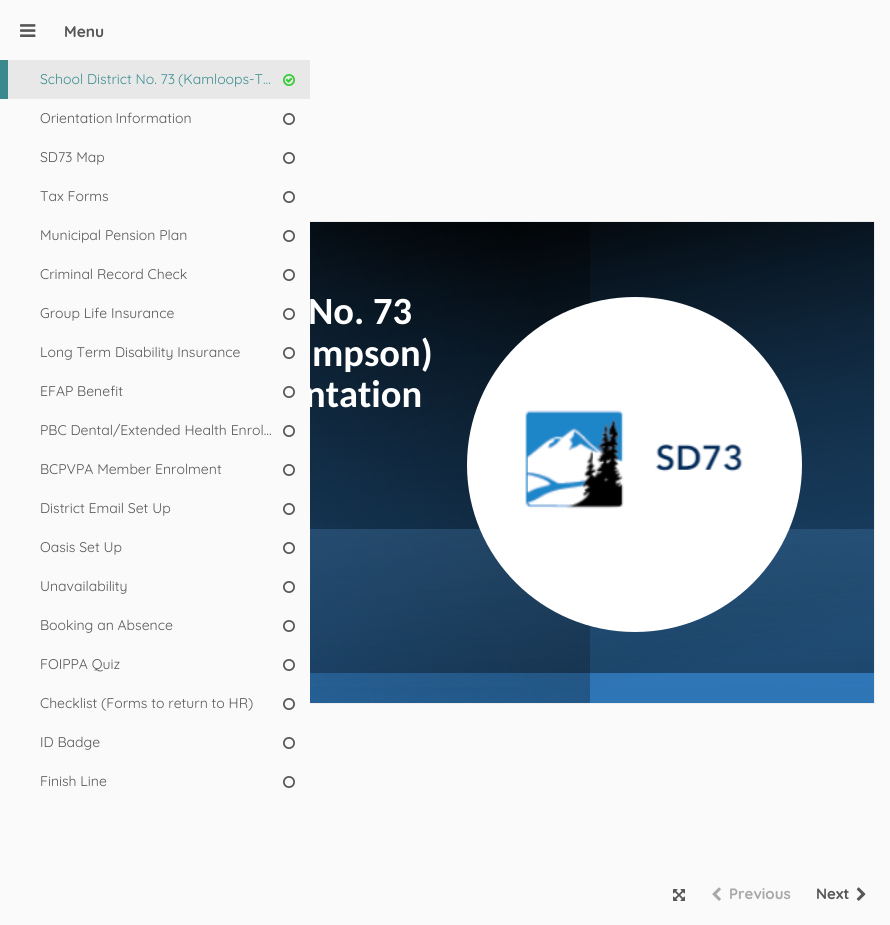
import math
import cairocffi as cairo

surface = cairo.ImageSurface(cairo.FORMAT_RGB24, 890, 925)
cr = cairo.Context(surface)
options = cairo.FontOptions()
options.set_hint_metrics(cairo.HINT_METRICS_OFF)
options.set_hint_style(cairo.HINT_STYLE_NONE)
cr.set_font_options(options)
cr.set_miter_limit(4)


def use_color(code):
    cr.set_source_rgb(*(v / 255 for v in bytes.fromhex(code[-6:])))


def spaced_text(x, y, s, letter, word):
    cr.move_to(x, y)
    for ch in s:
        cr.show_text(ch)
        cr.rel_move_to(letter + word * (ch == ' '), 0)


def picture(path, x, y, w, h):
    cr.save()
    cr.set_source_surface(cairo.ImageSurface.create_from_png(path), x, y)
    cr.rectangle(x, y, w, h)
    cr.fill()
    cr.restore()


use_color("#fafafa")
cr.paint()
cr.rectangle(15.5, 221.5, 859, 482)
use_color("#eeeeee")
cr.set_line_width(1)
cr.stroke()
gradient = cairo.LinearGradient(300, 237, 400, 730)
gradient.add_color_stop_rgba(0, 0, 0, 0, 1)
gradient.add_color_stop_rgba(1, 0.18, 0.459, 0.714, 1)
cr.set_source(gradient)
cr.rectangle(310, 222, 564, 481)
cr.fill()
gradient = cairo.LinearGradient(66, 546, 560, 347)
gradient.add_color_stop_rgba(0, 0.18, 0.459, 0.714, 0.45)
gradient.add_color_stop_rgba(1, 0, 0, 0, 0.29)
cr.set_source(gradient)
cr.rectangle(310, 222, 280, 481)
cr.fill()
gradient = cairo.LinearGradient(256, 253, 406, 725)
gradient.add_color_stop_rgba(0, 0, 0, 0, 0)
gradient.add_color_stop_rgba(1, 0, 0, 0, 0.41)
cr.set_source(gradient)
cr.rectangle(310, 222, 564, 451)
cr.fill()
cr.select_font_face("Carlito", cairo.FONT_SLANT_NORMAL, cairo.FONT_WEIGHT_BOLD)
cr.set_font_size(38.5)
use_color("#ffffff")
cr.move_to(305, 407)
cr.show_text("ntation")
use_color("#fafafa")
cr.rectangle(15, 221, 295, 483)
cr.fill()
picture("img1.png", 20, 24, 16, 13)
cr.select_font_face("Quicksand", cairo.FONT_SLANT_NORMAL, cairo.FONT_WEIGHT_BOLD)
cr.set_font_size(15.5)
use_color("#565656")
cr.move_to(64, 37)
cr.show_text("Menu")
use_color("#e8e8e8")
cr.rectangle(8, 60, 302, 39)
cr.fill()
use_color("#39898d")
cr.rectangle(0, 60, 8, 39)
cr.fill()
cr.select_font_face("Quicksand")
cr.set_font_size(14)
use_color("#3b8e92")
cr.move_to(40, 84)
cr.show_text("School District No. 73")
spaced_text(178, 84, "(Kamloops-T…", 0, -1)
picture("img2.png", 283, 74, 12, 12)
use_color("#565656")
spaced_text(40, 123, "Orientation Information", 0, -1)
picture("img3.png", 283, 113, 12, 12)
cr.move_to(40, 162)
cr.show_text("SD73 Map")
picture("img3.png", 283, 152, 12, 12)
cr.move_to(40, 201)
cr.show_text("Tax Forms")
picture("img3.png", 283, 191, 12, 12)
cr.move_to(40, 240)
cr.show_text("Municipal Pension Plan")
picture("img3.png", 283, 230, 12, 12)
cr.move_to(40, 279)
cr.show_text("Criminal Record Check")
picture("img3.png", 283, 269, 12, 12)
cr.move_to(40, 318)
cr.show_text("Group Life Insurance")
picture("img3.png", 283, 308, 12, 12)
cr.move_to(40, 357)
cr.show_text("Long Term Disability Insurance")
picture("img3.png", 283, 347, 12, 12)
cr.move_to(40, 396)
cr.show_text("EFAP Benefit")
picture("img3.png", 283, 386, 12, 12)
cr.move_to(40, 435)
cr.show_text("PBC Dental/Extended Health Enrol…")
picture("img3.png", 283, 425, 12, 12)
cr.move_to(40, 474)
cr.show_text("BCPVPA Member Enrolment")
picture("img3.png", 283, 464, 12, 12)
cr.move_to(40, 513)
cr.show_text("District Email Set Up")
picture("img3.png", 283, 503, 12, 12)
cr.move_to(40, 552)
cr.show_text("Oasis Set Up")
picture("img3.png", 283, 542, 12, 12)
cr.move_to(40, 591)
cr.show_text("Unavailability")
picture("img3.png", 283, 581, 12, 12)
cr.move_to(40, 630)
cr.show_text("Booking an Absence")
picture("img3.png", 283, 620, 12, 12)
cr.move_to(40, 669)
cr.show_text("FOIPPA Quiz")
picture("img3.png", 283, 659, 12, 12)
cr.move_to(40, 708)
cr.show_text("Checklist (Forms to return to HR)")
picture("img3.png", 283, 698, 12, 12)
cr.move_to(40, 747)
cr.show_text("ID Badge")
picture("img3.png", 283, 737, 12, 12)
cr.move_to(40, 786)
cr.show_text("Finish Line")
picture("img3.png", 283, 776, 12, 12)
cr.select_font_face("Carlito", cairo.FONT_SLANT_NORMAL, cairo.FONT_WEIGHT_BOLD)
cr.set_font_size(38.5)
use_color("#ffffff")
cr.move_to(308, 324)
cr.show_text("No. 73")
cr.move_to(312, 366)
cr.show_text("mpson)")
gradient = cairo.LinearGradient(369, 531, 375, 710)
gradient.add_color_stop_rgba(0, 0.357, 0.608, 0.835, 0.24)
gradient.add_color_stop_rgba(1, 0.357, 0.608, 0.835, 0)
cr.set_source(gradient)
cr.rectangle(310, 529, 564, 158)
cr.fill()
use_color("#ffffff")
cr.new_path()
cr.move_to(467, 465)
cr.curve_to(467, 372, 542, 297, 635, 297)
cr.curve_to(727, 297, 802, 372, 802, 465)
cr.curve_to(802, 557, 727, 632, 635, 632)
cr.curve_to(542, 632, 467, 557, 467, 465)
cr.close_path()
cr.fill()
picture("img4.png", 525, 410, 218, 99)
picture("img5.png", 673, 889, 12, 12)
picture("img6.png", 712, 887, 9, 14)
cr.select_font_face("Quicksand", cairo.FONT_SLANT_NORMAL, cairo.FONT_WEIGHT_BOLD)
cr.set_font_size(15)
use_color("#a8a8a8")
cr.move_to(729, 899)
cr.show_text("Previous")
use_color("#565656")
cr.move_to(816, 899)
cr.show_text("Next")
picture("img7.png", 856, 887, 10, 14)
surface.write_to_png("result.png")
